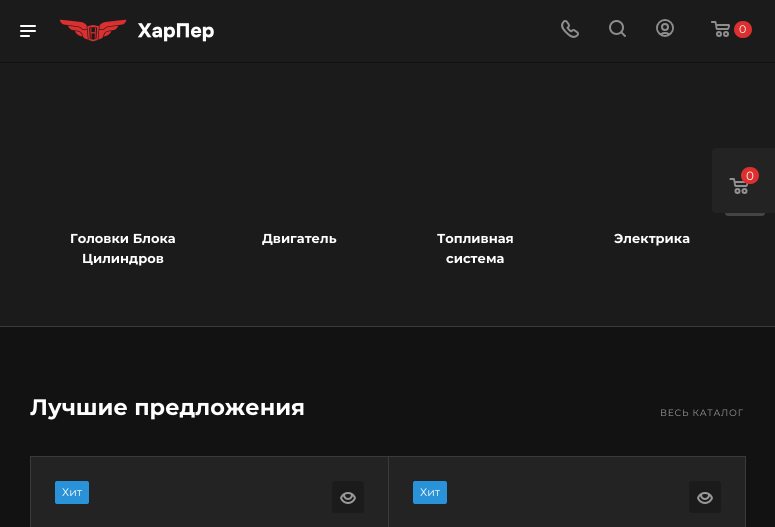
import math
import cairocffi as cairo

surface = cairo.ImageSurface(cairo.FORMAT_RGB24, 775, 527)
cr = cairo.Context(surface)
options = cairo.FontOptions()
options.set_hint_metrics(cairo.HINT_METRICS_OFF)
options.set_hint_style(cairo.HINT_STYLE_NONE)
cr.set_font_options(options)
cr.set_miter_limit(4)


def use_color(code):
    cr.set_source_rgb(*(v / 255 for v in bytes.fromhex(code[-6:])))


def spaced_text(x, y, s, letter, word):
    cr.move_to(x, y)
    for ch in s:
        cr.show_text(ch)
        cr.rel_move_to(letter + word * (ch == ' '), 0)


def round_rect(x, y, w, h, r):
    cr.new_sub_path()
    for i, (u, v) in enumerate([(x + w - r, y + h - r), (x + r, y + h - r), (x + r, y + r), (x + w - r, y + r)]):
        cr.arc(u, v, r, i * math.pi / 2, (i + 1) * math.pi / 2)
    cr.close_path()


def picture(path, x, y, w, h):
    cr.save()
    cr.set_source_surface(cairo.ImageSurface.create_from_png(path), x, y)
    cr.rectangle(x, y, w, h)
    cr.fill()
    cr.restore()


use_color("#1b1b1b")
cr.paint()
use_color("#121212")
cr.rectangle(0, 62, 775, 1)
cr.fill()
picture("img1.png", 20, 25, 16, 12)
picture("img2.png", 59, 19, 155, 23)
picture("img3.png", 561, 20, 18, 18)
picture("img4.png", 609, 20, 17, 17)
picture("img5.png", 656, 19, 18, 18)
picture("img6.png", 711, 21, 19, 16)
use_color("#dc2f2f")
round_rect(734, 21, 18, 17, 8.5)
cr.fill()
cr.select_font_face("Montserrat")
cr.set_font_size(11)
use_color("#ffffff")
cr.move_to(739, 33)
cr.show_text("0")
use_color("#3a3a3a")
cr.rectangle(0, 326, 775, 1)
cr.fill()
use_color("#444444")
round_rect(725, 176, 40, 40, 3)
cr.fill()
cr.select_font_face("Montserrat", cairo.FONT_SLANT_NORMAL, cairo.FONT_WEIGHT_BOLD)
cr.set_font_size(13)
use_color("#ffffff")
cr.move_to(70, 243)
cr.show_text("Головки Блока")
cr.move_to(82, 263)
cr.show_text("Цилиндров")
cr.move_to(262, 243)
cr.show_text("Двигатель")
cr.move_to(437, 243)
cr.show_text("Топливная")
cr.move_to(446, 263)
cr.show_text("система")
cr.move_to(614, 243)
cr.show_text("Электрика")
use_color("#121212")
cr.rectangle(0, 327, 775, 200)
cr.fill()
cr.set_font_size(22.4)
use_color("#ffffff")
cr.move_to(30, 415)
cr.show_text("Лучшие предложения")
cr.select_font_face("Montserrat")
cr.set_font_size(9.25)
use_color("#999999")
spaced_text(660, 416, "ВЕСЬ КАТАЛОГ", 0.75, 0)
use_color("#232323")
cr.rectangle(30.5, 456.5, 358, 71)
cr.fill_preserve()
use_color("#3a3a3a")
cr.set_line_width(1)
cr.stroke()
use_color("#2992d9")
round_rect(55, 481, 34, 23, 2)
cr.fill()
cr.set_font_size(11)
use_color("#ffffff")
cr.move_to(62, 496)
cr.show_text("Хит")
use_color("#1b1b1b")
round_rect(332, 481, 32, 32, 3)
cr.fill()
picture("img7.png", 340, 492, 16, 12)
use_color("#232323")
cr.rectangle(388.5, 456.5, 357, 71)
cr.fill_preserve()
use_color("#3a3a3a")
cr.stroke()
use_color("#2992d9")
round_rect(413, 481, 34, 23, 2)
cr.fill()
use_color("#ffffff")
cr.move_to(420, 496)
cr.show_text("Хит")
use_color("#1b1b1b")
round_rect(689, 481, 32, 32, 3)
cr.fill()
picture("img7.png", 697, 492, 16, 12)
use_color("#232323")
cr.new_path()
cr.move_to(716, 148)
cr.line_to(775, 148)
cr.line_to(775, 213)
cr.line_to(716, 213)
cr.curve_to(714, 213, 712, 211, 712, 209)
cr.line_to(712, 152)
cr.curve_to(712, 150, 714, 148, 716, 148)
cr.close_path()
cr.fill()
picture("img8.png", 729, 178, 20, 16)
use_color("#dc2f2f")
round_rect(741, 167, 18, 17, 8.5)
cr.fill()
cr.set_font_size(12)
use_color("#ffffff")
cr.move_to(746, 180)
cr.show_text("0")
surface.write_to_png("result.png")
